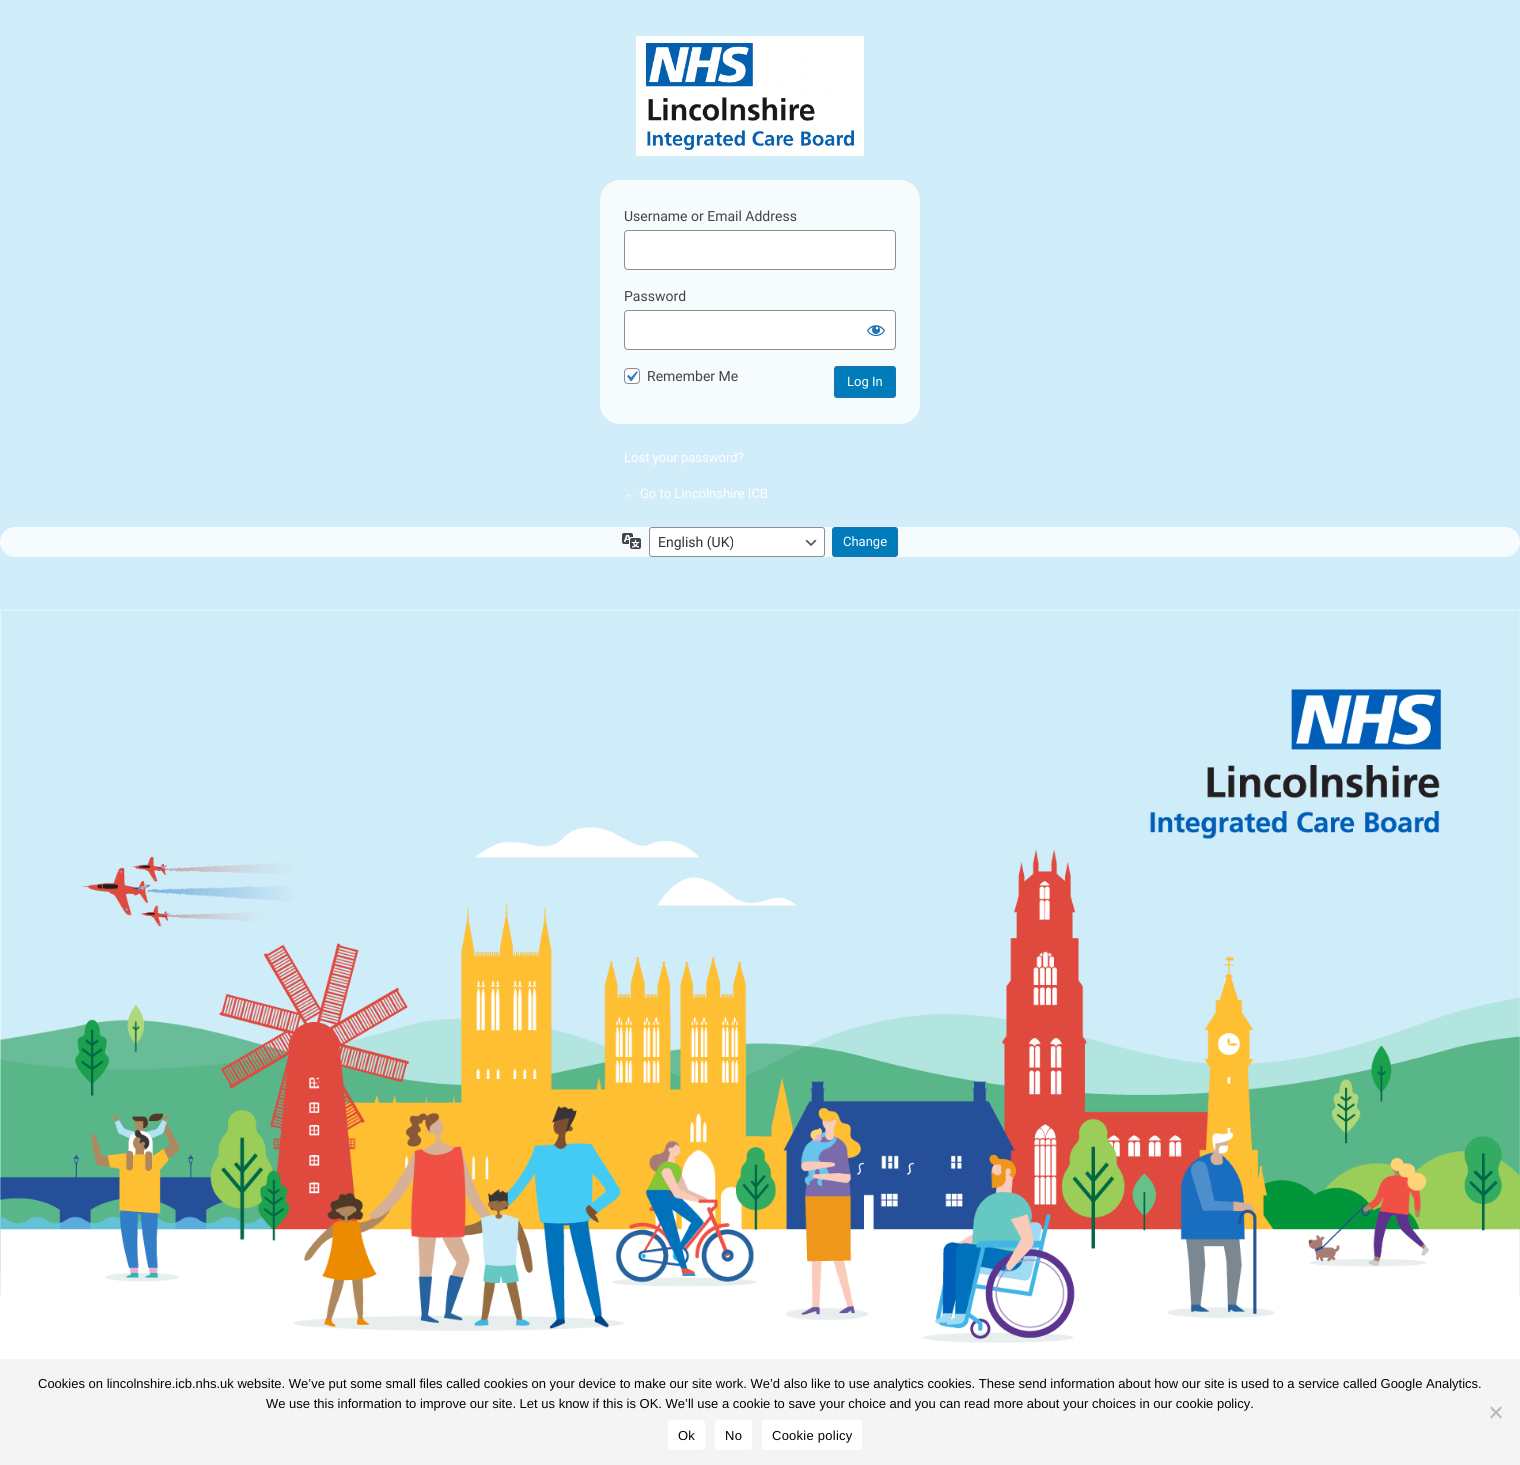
import math
import cairocffi as cairo

surface = cairo.ImageSurface(cairo.FORMAT_RGB24, 1520, 1465)
cr = cairo.Context(surface)
options = cairo.FontOptions()
options.set_hint_metrics(cairo.HINT_METRICS_OFF)
options.set_hint_style(cairo.HINT_STYLE_NONE)
cr.set_font_options(options)
cr.set_miter_limit(4)


def use_color(code):
    cr.set_source_rgb(*(v / 255 for v in bytes.fromhex(code[-6:])))


def spaced_text(x, y, s, letter, word):
    cr.move_to(x, y)
    for ch in s:
        cr.show_text(ch)
        cr.rel_move_to(letter + word * (ch == ' '), 0)


def round_rect(x, y, w, h, r):
    cr.new_sub_path()
    for i, (u, v) in enumerate([(x + w - r, y + h - r), (x + r, y + h - r), (x + r, y + r), (x + w - r, y + r)]):
        cr.arc(u, v, r, i * math.pi / 2, (i + 1) * math.pi / 2)
    cr.close_path()


def picture(path, x, y, w, h):
    cr.save()
    cr.set_source_surface(cairo.ImageSurface.create_from_png(path), x, y)
    cr.rectangle(x, y, w, h)
    cr.fill()
    cr.restore()


use_color("#d0edf9")
cr.paint()
picture("img1.png", 0, 610, 1520, 749)
picture("img2.png", 636, 36, 228, 120)
cr.set_source_rgba(1, 1, 1, 0.8)
round_rect(600, 180, 320, 244, 20)
cr.fill()
cr.select_font_face("Roboto")
cr.set_font_size(14)
use_color("#444444")
cr.move_to(624, 221)
cr.show_text("Username or Email Address")
use_color("#ffffff")
round_rect(624.5, 230.5, 271, 39, 3.5)
cr.fill_preserve()
use_color("#8c8f94")
cr.set_line_width(1)
cr.stroke()
use_color("#444444")
cr.move_to(624, 301)
cr.show_text("Password")
use_color("#ffffff")
round_rect(624.5, 310.5, 271, 39, 3.5)
cr.fill_preserve()
use_color("#8c8f94")
cr.stroke()
picture("img3.png", 867, 325, 18, 12)
use_color("#ffffff")
round_rect(624.5, 368.5, 15, 15, 3.5)
cr.fill_preserve()
use_color("#8c8f94")
cr.stroke()
picture("img4.png", 627, 371, 11, 10)
use_color("#444444")
cr.move_to(647, 381)
cr.show_text("Remember Me")
use_color("#007cba")
round_rect(834.5, 366.5, 61, 31, 2.5)
cr.fill_preserve()
use_color("#2271b1")
cr.stroke()
cr.set_font_size(13)
use_color("#ffffff")
cr.move_to(847, 386)
cr.show_text("Log In")
cr.move_to(624, 462)
cr.show_text("Lost your password?")
cr.select_font_face("Liberation Sans")
cr.move_to(624, 498)
cr.show_text("←")
cr.select_font_face("Roboto")
cr.move_to(640, 498)
cr.show_text("Go to Lincolnshire ICB")
use_color("#f6fbfe")
round_rect(0, 527, 1520, 30, 15)
cr.fill()
picture("img5.png", 622, 533, 19, 16)
use_color("#ffffff")
round_rect(649, 527, 176, 30, 3)
cr.fill()
picture("img6.png", 805, 539, 12, 7)
round_rect(649.5, 527.5, 175, 29, 2.5)
use_color("#8c8f94")
cr.stroke()
cr.set_font_size(14)
use_color("#2c3338")
cr.move_to(658, 547)
cr.show_text("English (UK)")
use_color("#007cba")
round_rect(832.5, 527.5, 65, 29, 2.5)
cr.fill_preserve()
use_color("#2271b1")
cr.stroke()
cr.set_font_size(13)
use_color("#ffffff")
cr.move_to(843, 546)
cr.show_text("Change")
use_color("#f4f4f4")
cr.rectangle(0, 1359, 1520, 106)
cr.fill()
cr.select_font_face("Liberation Sans")
use_color("#020202")
cr.move_to(38, 1388)
cr.show_text("Cookies on lincolnshire.icb.nhs.uk website. We’ve put some small files called cookies on your device to make our site work. We’d also like to use analytics cookies. These send information about how our site is used to a service called Google Analytics.")
cr.move_to(266, 1408)
cr.show_text("We use this information to improve our site. Let us know if this is OK. We’ll use a cookie to save your choice and you can read more about your choices in our cookie policy.")
use_color("#bababa")
cr.new_path()
cr.move_to(1500.5, 1406.5)
cr.line_to(1502, 1408)
cr.line_to(1491.5, 1418.5)
cr.line_to(1490, 1417)
cr.close_path()
cr.fill()
cr.new_path()
cr.move_to(1490, 1408)
cr.line_to(1491.5, 1406.5)
cr.line_to(1502, 1417)
cr.line_to(1500.5, 1418.5)
cr.close_path()
cr.fill()
use_color("#ffffff")
round_rect(668, 1420, 37, 30, 3)
cr.fill()
use_color("#020202")
spaced_text(678, 1440, "Ok", 0.25, 0)
use_color("#ffffff")
round_rect(715, 1420, 37, 30, 3)
cr.fill()
use_color("#020202")
spaced_text(725, 1440, "No", 0.25, 0)
use_color("#ffffff")
round_rect(762, 1420, 100, 30, 3)
cr.fill()
use_color("#020202")
spaced_text(772, 1440, "Cookie policy", 0.25, 0)
surface.write_to_png("result.png")
